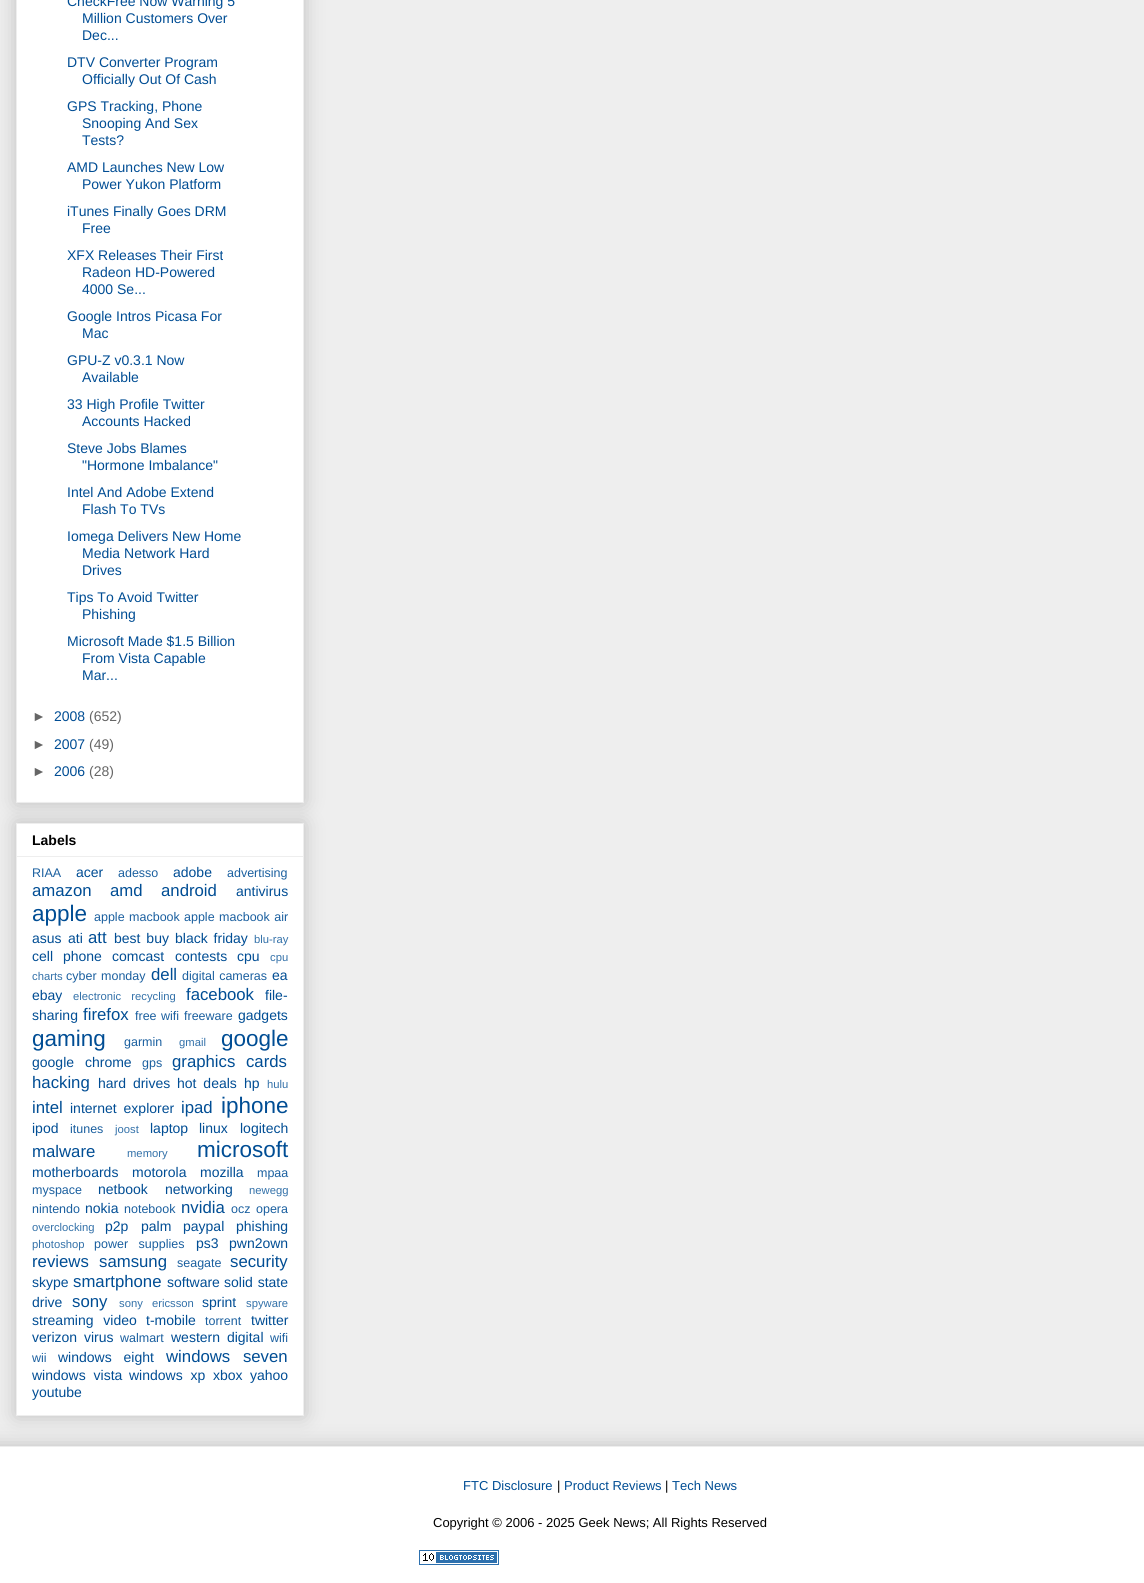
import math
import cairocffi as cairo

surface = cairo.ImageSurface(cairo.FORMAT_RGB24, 1144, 1583)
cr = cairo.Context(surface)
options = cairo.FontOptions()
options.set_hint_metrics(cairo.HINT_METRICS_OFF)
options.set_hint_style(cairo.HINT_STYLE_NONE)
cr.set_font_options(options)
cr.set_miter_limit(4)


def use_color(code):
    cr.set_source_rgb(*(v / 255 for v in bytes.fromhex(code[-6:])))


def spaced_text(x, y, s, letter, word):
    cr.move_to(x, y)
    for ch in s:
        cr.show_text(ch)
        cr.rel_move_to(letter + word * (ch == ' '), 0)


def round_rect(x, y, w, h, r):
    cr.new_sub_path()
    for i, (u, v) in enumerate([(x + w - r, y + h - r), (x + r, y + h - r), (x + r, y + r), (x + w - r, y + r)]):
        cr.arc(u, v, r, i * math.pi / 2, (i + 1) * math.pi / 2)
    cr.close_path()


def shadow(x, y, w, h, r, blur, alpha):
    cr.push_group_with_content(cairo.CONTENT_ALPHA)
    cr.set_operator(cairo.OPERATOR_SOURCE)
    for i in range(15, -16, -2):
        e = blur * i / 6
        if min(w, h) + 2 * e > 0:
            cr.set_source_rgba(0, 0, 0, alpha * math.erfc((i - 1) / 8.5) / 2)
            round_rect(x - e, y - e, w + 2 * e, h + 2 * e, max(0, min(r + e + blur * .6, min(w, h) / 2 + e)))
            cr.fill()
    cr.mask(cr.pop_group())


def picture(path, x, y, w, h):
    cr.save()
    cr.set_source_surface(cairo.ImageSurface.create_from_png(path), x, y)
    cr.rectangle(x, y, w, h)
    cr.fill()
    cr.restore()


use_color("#eeeeee")
cr.paint()
use_color("#000000")
shadow(16, -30, 288, 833, 0, 10, 0.2)
use_color("#ffffff")
cr.rectangle(16.5, -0.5, 287, 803)
cr.fill_preserve()
use_color("#eeeeee")
cr.set_line_width(1)
cr.stroke()
cr.select_font_face("Liberation Sans")
cr.set_font_size(14)
use_color("#004d94")
cr.move_to(67, 6)
cr.show_text("CheckFree Now Warning 5")
cr.move_to(82, 23)
cr.show_text("Million Customers Over")
cr.move_to(82, 40)
cr.show_text("Dec...")
cr.move_to(67, 67)
cr.show_text("DTV Converter Program")
cr.move_to(82, 84)
cr.show_text("Officially Out Of Cash")
cr.move_to(67, 111)
cr.show_text("GPS Tracking, Phone")
cr.move_to(82, 128)
cr.show_text("Snooping And Sex")
cr.move_to(82, 145)
cr.show_text("Tests?")
cr.move_to(67, 172)
cr.show_text("AMD Launches New Low")
cr.move_to(82, 189)
cr.show_text("Power Yukon Platform")
cr.move_to(67, 216)
cr.show_text("iTunes Finally Goes DRM")
cr.move_to(82, 233)
cr.show_text("Free")
cr.move_to(67, 260)
cr.show_text("XFX Releases Their First")
cr.move_to(82, 277)
cr.show_text("Radeon HD-Powered")
cr.move_to(82, 294)
cr.show_text("4000 Se...")
cr.move_to(67, 321)
cr.show_text("Google Intros Picasa For")
cr.move_to(82, 338)
cr.show_text("Mac")
cr.move_to(67, 365)
cr.show_text("GPU-Z v0.3.1 Now")
cr.move_to(82, 382)
cr.show_text("Available")
cr.move_to(67, 409)
cr.show_text("33 High Profile Twitter")
cr.move_to(82, 426)
cr.show_text("Accounts Hacked")
cr.move_to(67, 453)
cr.show_text("Steve Jobs Blames")
cr.move_to(82, 470)
cr.show_text("\"Hormone Imbalance\"")
cr.move_to(67, 497)
cr.show_text("Intel And Adobe Extend")
cr.move_to(82, 514)
cr.show_text("Flash To TVs")
cr.move_to(67, 541)
cr.show_text("Iomega Delivers New Home")
cr.move_to(82, 558)
cr.show_text("Media Network Hard")
cr.move_to(82, 575)
cr.show_text("Drives")
cr.move_to(67, 602)
cr.show_text("Tips To Avoid Twitter")
cr.move_to(82, 619)
cr.show_text("Phishing")
cr.move_to(67, 646)
cr.show_text("Microsoft Made $1.5 Billion")
cr.move_to(82, 663)
cr.show_text("From Vista Capable")
cr.move_to(82, 680)
cr.show_text("Mar...")
use_color("#666666")
cr.move_to(32, 721)
cr.show_text("►")
use_color("#004d94")
cr.move_to(54, 721)
cr.show_text("2008")
use_color("#666666")
cr.move_to(89, 721)
cr.show_text("(652)")
cr.move_to(32, 749)
cr.show_text("►")
use_color("#004d94")
cr.move_to(54, 749)
cr.show_text("2007")
use_color("#666666")
cr.move_to(89, 749)
cr.show_text("(49)")
cr.move_to(32, 776)
cr.show_text("►")
use_color("#004d94")
cr.move_to(54, 776)
cr.show_text("2006")
use_color("#666666")
cr.move_to(89, 776)
cr.show_text("(28)")
use_color("#000000")
shadow(16, 823, 288, 593, 0, 10, 0.2)
use_color("#ffffff")
cr.rectangle(16.5, 823.5, 287, 592)
cr.fill_preserve()
use_color("#eeeeee")
cr.stroke()
cr.select_font_face("Liberation Sans", cairo.FONT_SLANT_NORMAL, cairo.FONT_WEIGHT_BOLD)
use_color("#000000")
cr.move_to(32, 845)
cr.show_text("Labels")
use_color("#eeeeee")
cr.rectangle(17, 856, 286, 1)
cr.fill()
cr.select_font_face("Liberation Sans")
cr.set_font_size(12.5)
use_color("#1a5f9f")
cr.move_to(32, 877)
cr.show_text("RIAA")
cr.set_font_size(14)
use_color("#004d94")
cr.move_to(76, 877)
cr.show_text("acer")
cr.set_font_size(12.5)
use_color("#1a5f9f")
cr.move_to(118, 877)
cr.show_text("adesso")
cr.set_font_size(14)
use_color("#004d94")
cr.move_to(173, 877)
cr.show_text("adobe")
cr.set_font_size(12.5)
use_color("#1a5f9f")
cr.move_to(227, 877)
cr.show_text("advertising")
cr.set_font_size(16.75)
use_color("#004d94")
cr.move_to(32, 896)
cr.show_text("amazon")
cr.move_to(110, 896)
cr.show_text("amd")
cr.move_to(161, 896)
cr.show_text("android")
cr.set_font_size(14)
cr.move_to(236, 896)
cr.show_text("antivirus")
cr.set_font_size(22.5)
cr.move_to(32, 921)
cr.show_text("apple")
cr.set_font_size(12.5)
use_color("#1a5f9f")
spaced_text(94, 921, "apple macbook", 0, 1)
spaced_text(184, 921, "apple macbook air", 0, 1)
cr.set_font_size(14)
use_color("#004d94")
cr.move_to(32, 943)
cr.show_text("asus")
cr.move_to(68, 943)
cr.show_text("ati")
cr.set_font_size(16.75)
cr.move_to(88, 943)
cr.show_text("att")
cr.set_font_size(14)
spaced_text(114, 943, "best buy", 0, 2)
spaced_text(175, 943, "black friday", 0, 2)
cr.set_font_size(11.25)
use_color("#3371a9")
cr.move_to(254, 943)
cr.show_text("blu-ray")
cr.set_font_size(14)
use_color("#004d94")
spaced_text(32, 961, "cell phone", 0, 6)
cr.move_to(112, 961)
cr.show_text("comcast")
cr.move_to(175, 961)
cr.show_text("contests")
cr.move_to(237, 961)
cr.show_text("cpu")
cr.set_font_size(11.25)
use_color("#3371a9")
cr.move_to(270, 961)
cr.show_text("cpu")
cr.move_to(32, 980)
cr.show_text("charts")
cr.set_font_size(12.5)
use_color("#1a5f9f")
spaced_text(66, 980, "cyber monday", 0, 1)
cr.set_font_size(16.75)
use_color("#004d94")
cr.move_to(151, 980)
cr.show_text("dell")
cr.set_font_size(12.5)
use_color("#1a5f9f")
spaced_text(182, 980, "digital cameras", 0, 1)
cr.set_font_size(14)
use_color("#004d94")
cr.move_to(272, 980)
cr.show_text("ea")
cr.move_to(32, 1000)
cr.show_text("ebay")
cr.set_font_size(11.25)
use_color("#3371a9")
spaced_text(73, 1000, "electronic recycling", 0, 7)
cr.set_font_size(16.75)
use_color("#004d94")
cr.move_to(186, 1000)
cr.show_text("facebook")
cr.set_font_size(14)
cr.move_to(265, 1000)
cr.show_text("file-")
cr.move_to(32, 1020)
cr.show_text("sharing")
cr.set_font_size(16.75)
cr.move_to(83, 1020)
cr.show_text("firefox")
cr.set_font_size(12.5)
use_color("#1a5f9f")
spaced_text(135, 1020, "free wifi", 0, 1)
cr.move_to(184, 1020)
cr.show_text("freeware")
cr.set_font_size(14)
use_color("#004d94")
cr.move_to(238, 1020)
cr.show_text("gadgets")
cr.set_font_size(22.5)
cr.move_to(32, 1046)
cr.show_text("gaming")
cr.set_font_size(12.5)
use_color("#1a5f9f")
cr.move_to(124, 1046)
cr.show_text("garmin")
cr.set_font_size(11.25)
use_color("#3371a9")
cr.move_to(179, 1046)
cr.show_text("gmail")
cr.set_font_size(22.5)
use_color("#004d94")
cr.move_to(221, 1046)
cr.show_text("google")
cr.set_font_size(14)
spaced_text(32, 1067, "google chrome", 0, 7)
cr.set_font_size(12.5)
use_color("#1a5f9f")
cr.move_to(142, 1067)
cr.show_text("gps")
cr.set_font_size(16.75)
use_color("#004d94")
spaced_text(172, 1067, "graphics cards", 0, 6)
cr.move_to(32, 1088)
cr.show_text("hacking")
cr.set_font_size(14)
spaced_text(98, 1088, "hard drives", 0, 3)
spaced_text(177, 1088, "hot deals", 0, 3)
cr.move_to(244, 1088)
cr.show_text("hp")
cr.set_font_size(11.25)
use_color("#3371a9")
cr.move_to(267, 1088)
cr.show_text("hulu")
cr.set_font_size(16.75)
use_color("#004d94")
cr.move_to(32, 1113)
cr.show_text("intel")
cr.set_font_size(14)
spaced_text(70, 1113, "internet explorer", 0, 3)
cr.set_font_size(16.75)
cr.move_to(181, 1113)
cr.show_text("ipad")
cr.set_font_size(22.5)
cr.move_to(221, 1113)
cr.show_text("iphone")
cr.set_font_size(14)
cr.move_to(32, 1133)
cr.show_text("ipod")
cr.set_font_size(12.5)
use_color("#1a5f9f")
cr.move_to(70, 1133)
cr.show_text("itunes")
cr.set_font_size(11.25)
use_color("#3371a9")
cr.move_to(115, 1133)
cr.show_text("joost")
cr.set_font_size(14)
use_color("#004d94")
cr.move_to(150, 1133)
cr.show_text("laptop")
cr.move_to(199, 1133)
cr.show_text("linux")
cr.move_to(240, 1133)
cr.show_text("logitech")
cr.set_font_size(16.75)
cr.move_to(32, 1157)
cr.show_text("malware")
cr.set_font_size(11.25)
use_color("#3371a9")
cr.move_to(127, 1157)
cr.show_text("memory")
cr.set_font_size(22.5)
use_color("#004d94")
cr.move_to(197, 1157)
cr.show_text("microsoft")
cr.set_font_size(14)
cr.move_to(32, 1177)
cr.show_text("motherboards")
cr.move_to(132, 1177)
cr.show_text("motorola")
cr.move_to(200, 1177)
cr.show_text("mozilla")
cr.set_font_size(12.5)
use_color("#1a5f9f")
cr.move_to(257, 1177)
cr.show_text("mpaa")
cr.move_to(32, 1194)
cr.show_text("myspace")
cr.set_font_size(14)
use_color("#004d94")
cr.move_to(98, 1194)
cr.show_text("netbook")
cr.move_to(165, 1194)
cr.show_text("networking")
cr.set_font_size(11.25)
use_color("#3371a9")
cr.move_to(249, 1194)
cr.show_text("newegg")
cr.set_font_size(12.5)
use_color("#1a5f9f")
cr.move_to(32, 1213)
cr.show_text("nintendo")
cr.set_font_size(14)
use_color("#004d94")
cr.move_to(85, 1213)
cr.show_text("nokia")
cr.set_font_size(12.5)
use_color("#1a5f9f")
cr.move_to(124, 1213)
cr.show_text("notebook")
cr.set_font_size(16.75)
use_color("#004d94")
cr.move_to(181, 1213)
cr.show_text("nvidia")
cr.set_font_size(12.5)
use_color("#1a5f9f")
cr.move_to(231, 1213)
cr.show_text("ocz")
cr.move_to(256, 1213)
cr.show_text("opera")
cr.set_font_size(11.25)
use_color("#3371a9")
cr.move_to(32, 1231)
cr.show_text("overclocking")
cr.set_font_size(14)
use_color("#004d94")
cr.move_to(105, 1231)
cr.show_text("p2p")
cr.move_to(141, 1231)
cr.show_text("palm")
cr.move_to(183, 1231)
cr.show_text("paypal")
cr.move_to(236, 1231)
cr.show_text("phishing")
cr.set_font_size(11.25)
use_color("#3371a9")
cr.move_to(32, 1248)
cr.show_text("photoshop")
cr.set_font_size(12.5)
use_color("#1a5f9f")
spaced_text(94, 1248, "power supplies", 0, 7)
cr.set_font_size(14)
use_color("#004d94")
cr.move_to(196, 1248)
cr.show_text("ps3")
cr.move_to(229, 1248)
cr.show_text("pwn2own")
cr.set_font_size(16.75)
cr.move_to(32, 1267)
cr.show_text("reviews")
cr.move_to(99, 1267)
cr.show_text("samsung")
cr.set_font_size(12.5)
use_color("#1a5f9f")
cr.move_to(177, 1267)
cr.show_text("seagate")
cr.set_font_size(16.75)
use_color("#004d94")
cr.move_to(230, 1267)
cr.show_text("security")
cr.set_font_size(14)
cr.move_to(32, 1287)
cr.show_text("skype")
cr.set_font_size(16.75)
cr.move_to(73, 1287)
cr.show_text("smartphone")
cr.set_font_size(14)
cr.move_to(167, 1287)
cr.show_text("software")
spaced_text(224, 1287, "solid state", 0, 1)
cr.move_to(32, 1307)
cr.show_text("drive")
cr.set_font_size(16.75)
cr.move_to(72, 1307)
cr.show_text("sony")
cr.set_font_size(11.25)
use_color("#3371a9")
spaced_text(119, 1307, "sony ericsson", 0, 6)
cr.set_font_size(14)
use_color("#004d94")
cr.move_to(202, 1307)
cr.show_text("sprint")
cr.set_font_size(11.25)
use_color("#3371a9")
cr.move_to(246, 1307)
cr.show_text("spyware")
cr.set_font_size(14)
use_color("#004d94")
spaced_text(32, 1325, "streaming video", 0, 6)
cr.move_to(146, 1325)
cr.show_text("t-mobile")
cr.set_font_size(12.5)
use_color("#1a5f9f")
cr.move_to(205, 1325)
cr.show_text("torrent")
cr.set_font_size(14)
use_color("#004d94")
cr.move_to(251, 1325)
cr.show_text("twitter")
cr.move_to(32, 1342)
cr.show_text("verizon")
cr.move_to(84, 1342)
cr.show_text("virus")
cr.set_font_size(12.5)
use_color("#1a5f9f")
cr.move_to(120, 1342)
cr.show_text("walmart")
cr.set_font_size(14)
use_color("#004d94")
spaced_text(171, 1342, "western digital", 0, 3)
cr.set_font_size(12.5)
use_color("#1a5f9f")
cr.move_to(270, 1342)
cr.show_text("wifi")
cr.move_to(32, 1362)
cr.show_text("wii")
cr.set_font_size(14)
use_color("#004d94")
spaced_text(58, 1362, "windows eight", 0, 8)
cr.set_font_size(16.75)
spaced_text(166, 1362, "windows seven", 0, 8)
cr.set_font_size(14)
spaced_text(32, 1380, "windows vista", 0, 4)
spaced_text(129, 1380, "windows xp", 0, 4)
cr.move_to(213, 1380)
cr.show_text("xbox")
cr.move_to(250, 1380)
cr.show_text("yahoo")
cr.move_to(32, 1397)
cr.show_text("youtube")
use_color("#000000")
shadow(-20, 1446, 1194, 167, 0, 10, 0.2)
use_color("#ffffff")
cr.rectangle(0, 1447, 1144, 136)
cr.fill()
use_color("#eeeeee")
cr.rectangle(0, 1446, 1144, 1)
cr.fill()
cr.set_font_size(13)
use_color("#004d94")
cr.move_to(463, 1490)
cr.show_text("FTC Disclosure")
use_color("#000000")
cr.move_to(557, 1490)
cr.show_text("|")
use_color("#004d94")
cr.move_to(564, 1490)
cr.show_text("Product Reviews")
use_color("#000000")
cr.move_to(665, 1490)
cr.show_text("|")
use_color("#004d94")
cr.move_to(672, 1490)
cr.show_text("Tech News")
use_color("#000000")
cr.move_to(433, 1527)
cr.show_text("Copyright © 2006 - 2025 Geek News; All Rights Reserved")
picture("img1.png", 419, 1550, 80, 15)
surface.write_to_png("result.png")
